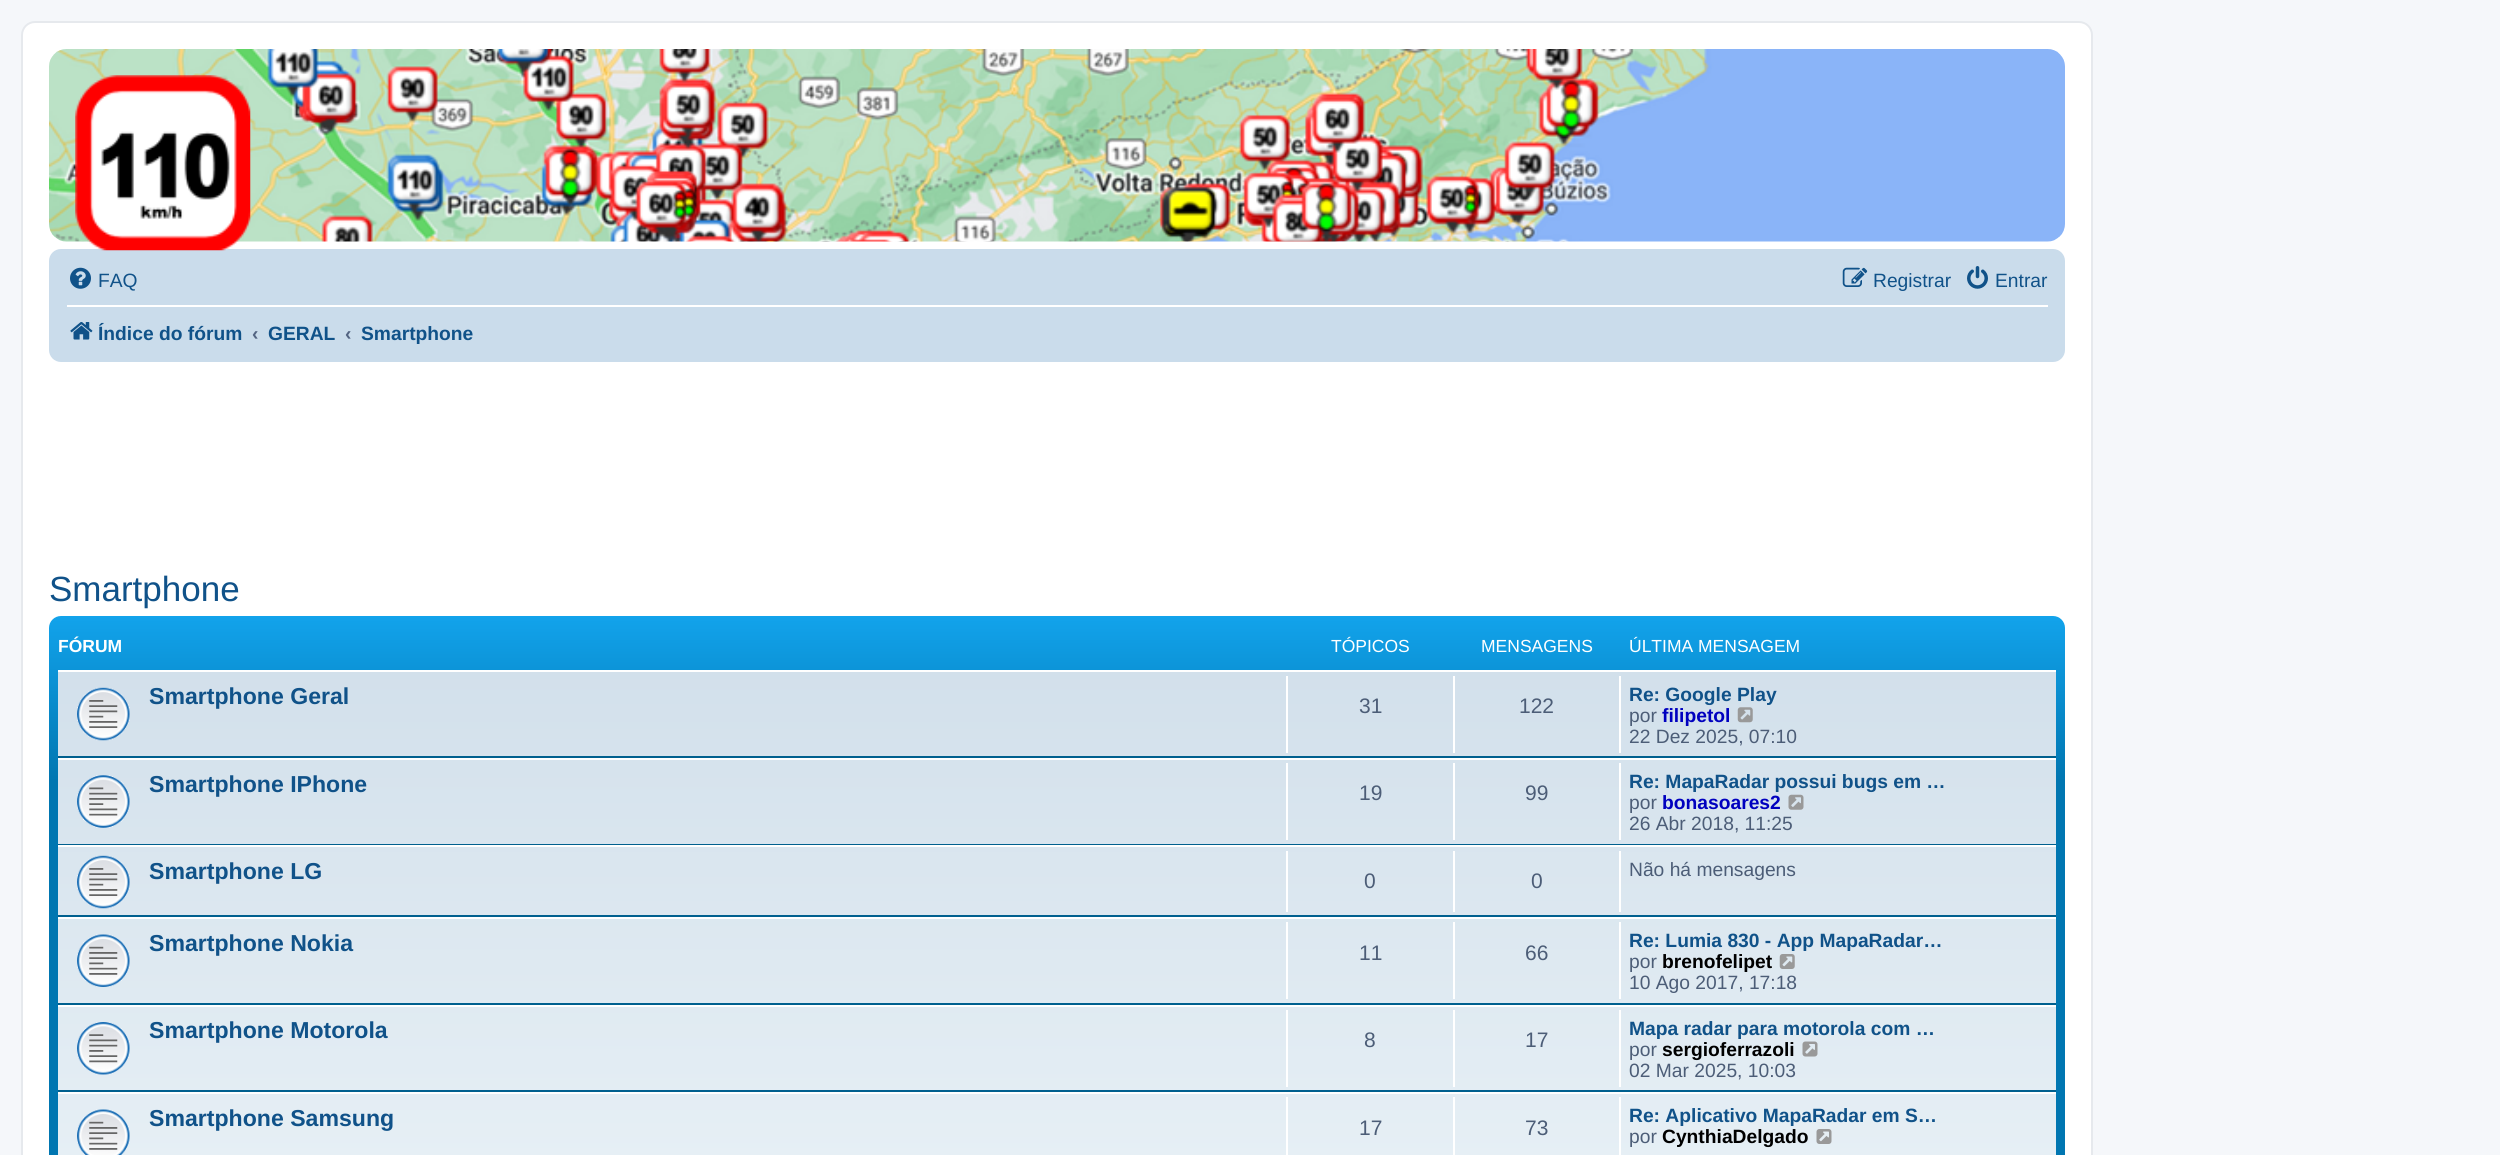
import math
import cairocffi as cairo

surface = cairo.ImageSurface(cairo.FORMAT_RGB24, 2500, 1155)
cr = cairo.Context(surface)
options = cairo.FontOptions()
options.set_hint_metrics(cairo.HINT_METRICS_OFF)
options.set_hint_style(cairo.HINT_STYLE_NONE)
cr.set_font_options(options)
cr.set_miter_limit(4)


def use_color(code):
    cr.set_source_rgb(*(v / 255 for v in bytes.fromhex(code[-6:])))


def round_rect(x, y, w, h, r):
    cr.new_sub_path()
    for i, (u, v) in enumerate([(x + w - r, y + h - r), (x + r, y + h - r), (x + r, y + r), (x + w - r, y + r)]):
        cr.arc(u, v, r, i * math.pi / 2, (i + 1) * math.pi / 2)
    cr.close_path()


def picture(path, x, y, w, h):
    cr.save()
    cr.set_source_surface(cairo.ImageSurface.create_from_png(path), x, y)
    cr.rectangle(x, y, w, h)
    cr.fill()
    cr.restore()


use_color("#f5f7fa")
cr.paint()
use_color("#ffffff")
round_rect(22, 22, 2070, 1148, 13)
cr.fill_preserve()
use_color("#e6e9ed")
cr.stroke()
picture("img1.png", 49, 49, 2016, 193)
use_color("#cadceb")
round_rect(49, 249, 2016, 113, 12)
cr.fill()
picture("img2.png", 75, 75, 176, 176)
picture("img3.png", 70, 267, 21, 22)
cr.select_font_face("Liberation Sans")
cr.set_font_size(19.25)
use_color("#105289")
cr.move_to(98, 287)
cr.show_text("FAQ")
picture("img4.png", 1842, 267, 26, 20)
cr.move_to(1873, 287)
cr.show_text("Registrar")
picture("img5.png", 1967, 266, 21, 23)
cr.move_to(1995, 287)
cr.show_text("Entrar")
use_color("#ffffff")
cr.rectangle(67, 305, 1981, 2)
cr.fill()
picture("img6.png", 70, 322, 23, 18)
cr.select_font_face("Liberation Sans", cairo.FONT_SLANT_NORMAL, cairo.FONT_WEIGHT_BOLD)
use_color("#105289")
cr.move_to(98, 340)
cr.show_text("Índice do fórum")
use_color("#536482")
cr.move_to(252, 340)
cr.show_text("‹")
use_color("#105289")
cr.move_to(268, 340)
cr.show_text("GERAL")
use_color("#536482")
cr.move_to(345, 340)
cr.show_text("‹")
use_color("#105289")
cr.move_to(361, 340)
cr.show_text("Smartphone")
cr.select_font_face("Liberation Sans")
cr.set_font_size(35)
cr.move_to(49, 601)
cr.show_text("Smartphone")
gradient = cairo.LinearGradient(1057, 616, 1057, 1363)
gradient.add_color_stop_rgba(0, 0.416, 0.808, 1, 1)
gradient.add_color_stop_rgba(0, 0.071, 0.639, 0.922, 1)
gradient.add_color_stop_rgba(0.22, 0, 0.463, 0.694, 1)
gradient.add_color_stop_rgba(1, 0, 0.463, 0.694, 1)
cr.set_source(gradient)
round_rect(49, 616, 2016, 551, 12)
cr.fill()
cr.select_font_face("Liberation Sans", cairo.FONT_SLANT_NORMAL, cairo.FONT_WEIGHT_BOLD)
cr.set_font_size(17.5)
use_color("#ffffff")
cr.move_to(58, 652)
cr.show_text("FÓRUM")
cr.select_font_face("Liberation Sans")
cr.move_to(1331, 652)
cr.show_text("TÓPICOS")
cr.move_to(1481, 652)
cr.show_text("MENSAGENS")
cr.move_to(1629, 652)
cr.show_text("ÚLTIMA MENSAGEM")
gradient = cairo.LinearGradient(1057, 670, 1057, 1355)
gradient.add_color_stop_rgba(0, 0.824, 0.878, 0.922, 1)
gradient.add_color_stop_rgba(1, 0.933, 0.961, 0.976, 1)
cr.set_source(gradient)
cr.rectangle(58, 672, 1998, 483)
cr.fill()
use_color("#ffffff")
cr.rectangle(58, 670, 1998, 2)
cr.fill()
use_color("#00608f")
cr.rectangle(58, 756, 1998, 2)
cr.fill()
picture("img7.png", 77, 687, 53, 54)
cr.select_font_face("Liberation Sans", cairo.FONT_SLANT_NORMAL, cairo.FONT_WEIGHT_BOLD)
cr.set_font_size(23.1)
use_color("#105289")
cr.move_to(149, 704)
cr.show_text("Smartphone Geral")
use_color("#ffffff")
cr.rectangle(1286, 676, 2, 77)
cr.fill()
cr.select_font_face("Liberation Sans")
cr.set_font_size(21)
use_color("#4c5d77")
cr.move_to(1359, 713)
cr.show_text("31")
use_color("#ffffff")
cr.rectangle(1453, 676, 2, 77)
cr.fill()
use_color("#4c5d77")
cr.move_to(1519, 713)
cr.show_text("122")
use_color("#ffffff")
cr.rectangle(1619, 676, 2, 77)
cr.fill()
cr.select_font_face("Liberation Sans", cairo.FONT_SLANT_NORMAL, cairo.FONT_WEIGHT_BOLD)
cr.set_font_size(19.25)
use_color("#105289")
cr.move_to(1629, 701)
cr.show_text("Re: Google Play")
cr.select_font_face("Liberation Sans")
use_color("#4c5d77")
cr.move_to(1629, 722)
cr.show_text("por")
cr.select_font_face("Liberation Sans", cairo.FONT_SLANT_NORMAL, cairo.FONT_WEIGHT_BOLD)
use_color("#0000bf")
cr.move_to(1662, 722)
cr.show_text("filipetol")
picture("img8.png", 1737, 707, 16, 16)
cr.select_font_face("Liberation Sans")
use_color("#4c5d77")
cr.move_to(1629, 743)
cr.show_text("22 Dez 2025, 07:10")
use_color("#ffffff")
cr.rectangle(58, 758, 1998, 2)
cr.fill()
use_color("#00608f")
cr.rectangle(58, 844, 1998, 1)
cr.fill()
picture("img9.png", 77, 775, 53, 53)
cr.select_font_face("Liberation Sans", cairo.FONT_SLANT_NORMAL, cairo.FONT_WEIGHT_BOLD)
cr.set_font_size(23.1)
use_color("#105289")
cr.move_to(149, 792)
cr.show_text("Smartphone IPhone")
use_color("#ffffff")
cr.rectangle(1286, 763, 2, 77)
cr.fill()
cr.select_font_face("Liberation Sans")
cr.set_font_size(21)
use_color("#4c5d77")
cr.move_to(1359, 800)
cr.show_text("19")
use_color("#ffffff")
cr.rectangle(1453, 763, 2, 77)
cr.fill()
use_color("#4c5d77")
cr.move_to(1525, 800)
cr.show_text("99")
use_color("#ffffff")
cr.rectangle(1619, 763, 2, 77)
cr.fill()
cr.select_font_face("Liberation Sans", cairo.FONT_SLANT_NORMAL, cairo.FONT_WEIGHT_BOLD)
cr.set_font_size(19.25)
use_color("#105289")
cr.move_to(1629, 788)
cr.show_text("Re: MapaRadar possui bugs em …")
cr.select_font_face("Liberation Sans")
use_color("#4c5d77")
cr.move_to(1629, 809)
cr.show_text("por")
cr.select_font_face("Liberation Sans", cairo.FONT_SLANT_NORMAL, cairo.FONT_WEIGHT_BOLD)
use_color("#0000bf")
cr.move_to(1662, 809)
cr.show_text("bonasoares2")
picture("img10.png", 1788, 794, 16, 16)
cr.select_font_face("Liberation Sans")
use_color("#4c5d77")
cr.move_to(1629, 830)
cr.show_text("26 Abr 2018, 11:25")
use_color("#ffffff")
cr.rectangle(58, 845, 1998, 2)
cr.fill()
use_color("#00608f")
cr.rectangle(58, 915, 1998, 2)
cr.fill()
picture("img11.png", 77, 855, 53, 54)
cr.select_font_face("Liberation Sans", cairo.FONT_SLANT_NORMAL, cairo.FONT_WEIGHT_BOLD)
cr.set_font_size(23.1)
use_color("#105289")
cr.move_to(149, 879)
cr.show_text("Smartphone LG")
use_color("#ffffff")
cr.rectangle(1286, 851, 2, 61)
cr.fill()
cr.select_font_face("Liberation Sans")
cr.set_font_size(21)
use_color("#4c5d77")
cr.move_to(1364, 888)
cr.show_text("0")
use_color("#ffffff")
cr.rectangle(1453, 851, 2, 61)
cr.fill()
use_color("#4c5d77")
cr.move_to(1531, 888)
cr.show_text("0")
use_color("#ffffff")
cr.rectangle(1619, 851, 2, 61)
cr.fill()
cr.set_font_size(19.25)
use_color("#4c5d77")
cr.move_to(1629, 876)
cr.show_text("Não há mensagens")
use_color("#ffffff")
cr.rectangle(58, 917, 1998, 2)
cr.fill()
use_color("#00608f")
cr.rectangle(58, 1003, 1998, 2)
cr.fill()
picture("img12.png", 77, 934, 53, 53)
cr.select_font_face("Liberation Sans", cairo.FONT_SLANT_NORMAL, cairo.FONT_WEIGHT_BOLD)
cr.set_font_size(23.1)
use_color("#105289")
cr.move_to(149, 951)
cr.show_text("Smartphone Nokia")
use_color("#ffffff")
cr.rectangle(1286, 922, 2, 77)
cr.fill()
cr.select_font_face("Liberation Sans")
cr.set_font_size(21)
use_color("#4c5d77")
cr.move_to(1359, 960)
cr.show_text("11")
use_color("#ffffff")
cr.rectangle(1453, 922, 2, 77)
cr.fill()
use_color("#4c5d77")
cr.move_to(1525, 960)
cr.show_text("66")
use_color("#ffffff")
cr.rectangle(1619, 922, 2, 77)
cr.fill()
cr.select_font_face("Liberation Sans", cairo.FONT_SLANT_NORMAL, cairo.FONT_WEIGHT_BOLD)
cr.set_font_size(19.25)
use_color("#105289")
cr.move_to(1629, 947)
cr.show_text("Re: Lumia 830 - App MapaRadar…")
cr.select_font_face("Liberation Sans")
use_color("#4c5d77")
cr.move_to(1629, 968)
cr.show_text("por")
cr.select_font_face("Liberation Sans", cairo.FONT_SLANT_NORMAL, cairo.FONT_WEIGHT_BOLD)
use_color("#000000")
cr.move_to(1662, 968)
cr.show_text("brenofelipet")
picture("img13.png", 1779, 954, 16, 15)
cr.select_font_face("Liberation Sans")
use_color("#4c5d77")
cr.move_to(1629, 989)
cr.show_text("10 Ago 2017, 17:18")
use_color("#ffffff")
cr.rectangle(58, 1005, 1998, 2)
cr.fill()
use_color("#00608f")
cr.rectangle(58, 1090, 1998, 2)
cr.fill()
picture("img14.png", 77, 1022, 53, 53)
cr.select_font_face("Liberation Sans", cairo.FONT_SLANT_NORMAL, cairo.FONT_WEIGHT_BOLD)
cr.set_font_size(23.1)
use_color("#105289")
cr.move_to(149, 1038)
cr.show_text("Smartphone Motorola")
use_color("#ffffff")
cr.rectangle(1286, 1010, 2, 77)
cr.fill()
cr.select_font_face("Liberation Sans")
cr.set_font_size(21)
use_color("#4c5d77")
cr.move_to(1364, 1047)
cr.show_text("8")
use_color("#ffffff")
cr.rectangle(1453, 1010, 2, 77)
cr.fill()
use_color("#4c5d77")
cr.move_to(1525, 1047)
cr.show_text("17")
use_color("#ffffff")
cr.rectangle(1619, 1010, 2, 77)
cr.fill()
cr.select_font_face("Liberation Sans", cairo.FONT_SLANT_NORMAL, cairo.FONT_WEIGHT_BOLD)
cr.set_font_size(19.25)
use_color("#105289")
cr.move_to(1629, 1035)
cr.show_text("Mapa radar para motorola com …")
cr.select_font_face("Liberation Sans")
use_color("#4c5d77")
cr.move_to(1629, 1056)
cr.show_text("por")
cr.select_font_face("Liberation Sans", cairo.FONT_SLANT_NORMAL, cairo.FONT_WEIGHT_BOLD)
use_color("#000000")
cr.move_to(1662, 1056)
cr.show_text("sergioferrazoli")
picture("img15.png", 1802, 1041, 16, 16)
cr.select_font_face("Liberation Sans")
use_color("#4c5d77")
cr.move_to(1629, 1077)
cr.show_text("02 Mar 2025, 10:03")
use_color("#ffffff")
cr.rectangle(58, 1092, 1998, 2)
cr.fill()
picture("img16.png", 77, 1109, 53, 46)
cr.select_font_face("Liberation Sans", cairo.FONT_SLANT_NORMAL, cairo.FONT_WEIGHT_BOLD)
cr.set_font_size(23.1)
use_color("#105289")
cr.move_to(149, 1126)
cr.show_text("Smartphone Samsung")
use_color("#ffffff")
cr.rectangle(1286, 1097, 2, 58)
cr.fill()
cr.select_font_face("Liberation Sans")
cr.set_font_size(21)
use_color("#4c5d77")
cr.move_to(1359, 1135)
cr.show_text("17")
use_color("#ffffff")
cr.rectangle(1453, 1097, 2, 58)
cr.fill()
use_color("#4c5d77")
cr.move_to(1525, 1135)
cr.show_text("73")
use_color("#ffffff")
cr.rectangle(1619, 1097, 2, 58)
cr.fill()
cr.select_font_face("Liberation Sans", cairo.FONT_SLANT_NORMAL, cairo.FONT_WEIGHT_BOLD)
cr.set_font_size(19.25)
use_color("#105289")
cr.move_to(1629, 1122)
cr.show_text("Re: Aplicativo MapaRadar em S…")
cr.select_font_face("Liberation Sans")
use_color("#4c5d77")
cr.move_to(1629, 1143)
cr.show_text("por")
cr.select_font_face("Liberation Sans", cairo.FONT_SLANT_NORMAL, cairo.FONT_WEIGHT_BOLD)
use_color("#000000")
cr.move_to(1662, 1143)
cr.show_text("CynthiaDelgado")
picture("img17.png", 1816, 1129, 16, 15)
surface.write_to_png("result.png")
